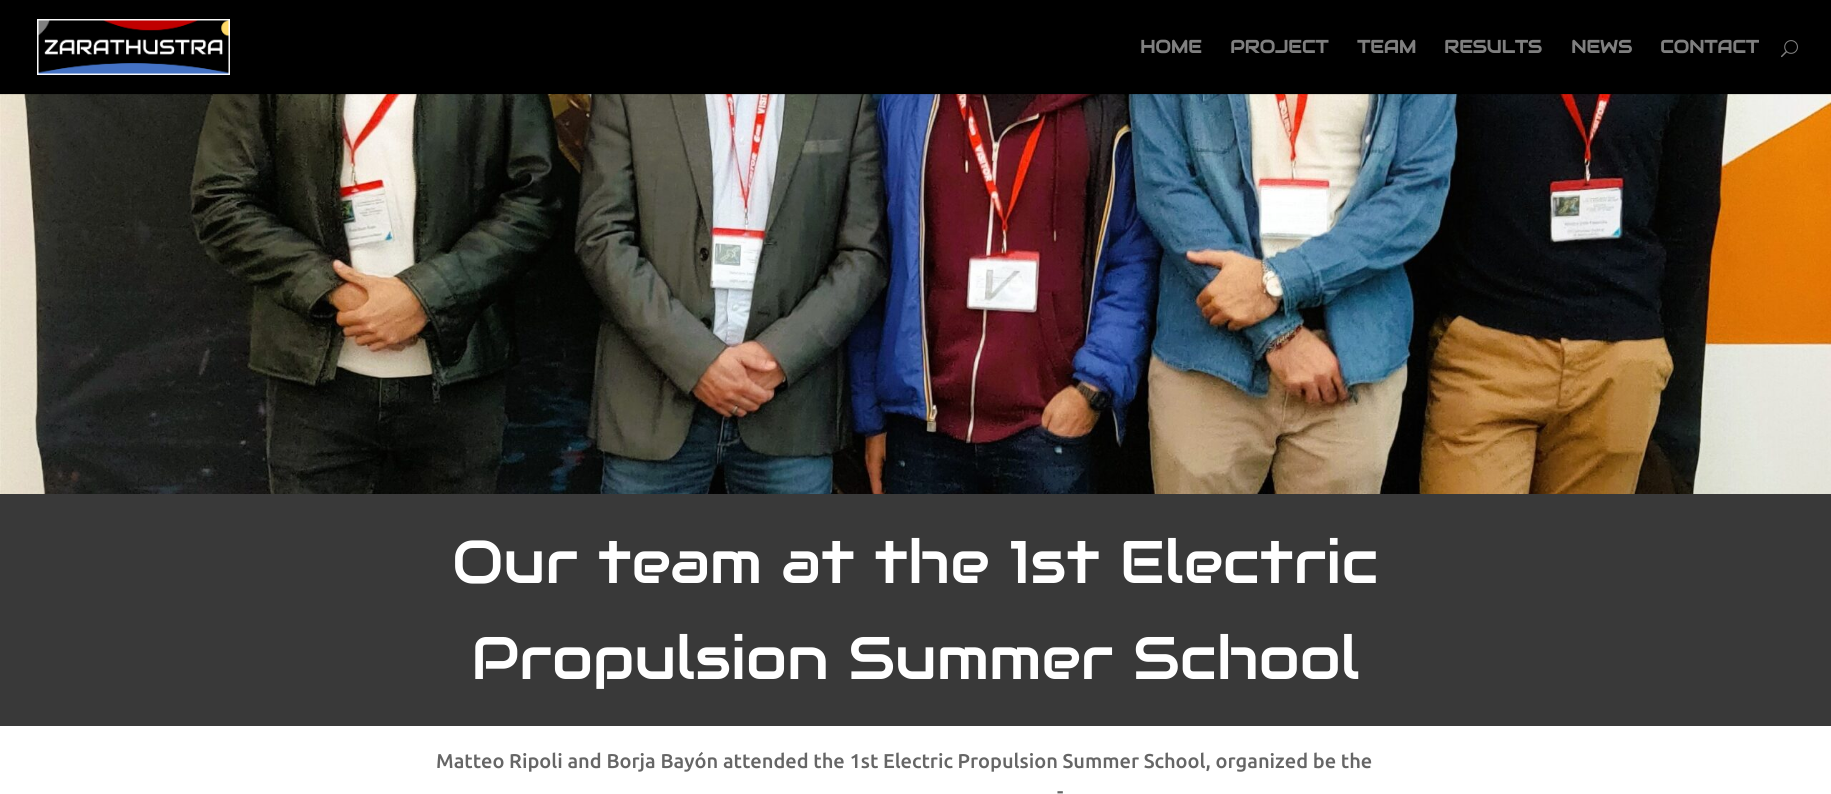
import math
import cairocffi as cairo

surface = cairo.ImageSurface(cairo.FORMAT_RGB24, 1831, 794)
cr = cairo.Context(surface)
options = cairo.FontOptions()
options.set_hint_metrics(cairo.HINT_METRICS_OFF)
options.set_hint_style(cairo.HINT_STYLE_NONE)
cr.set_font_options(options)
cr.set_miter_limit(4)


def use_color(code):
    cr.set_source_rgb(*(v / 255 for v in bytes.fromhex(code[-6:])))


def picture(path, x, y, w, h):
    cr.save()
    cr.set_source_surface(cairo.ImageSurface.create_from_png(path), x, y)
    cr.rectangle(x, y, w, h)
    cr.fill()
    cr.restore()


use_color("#ffffff")
cr.paint()
picture("img3.png", 0, 94, 1831, 400)
cr.set_source_rgba(0, 0, 0, 0.1)
cr.rectangle(0, 94, 1831, 1)
cr.fill()
use_color("#000000")
cr.rectangle(0, 0, 1831, 94)
cr.fill()
picture("img1.png", 37, 19, 193, 56)
cr.select_font_face("Audiowide", cairo.FONT_SLANT_NORMAL, cairo.FONT_WEIGHT_BOLD)
cr.set_font_size(18)
use_color("#7f7f7f")
cr.move_to(1140, 53)
cr.show_text("HOME")
cr.move_to(1230, 53)
cr.show_text("PROJECT")
cr.move_to(1357, 53)
cr.show_text("TEAM")
cr.move_to(1444, 53)
cr.show_text("RESULTS")
cr.move_to(1571, 53)
cr.show_text("NEWS")
cr.move_to(1660, 53)
cr.show_text("CONTACT")
picture("img2.png", 1781, 40, 17, 18)
use_color("#393939")
cr.rectangle(0, 494, 1831, 232)
cr.fill()
cr.select_font_face("Audiowide")
cr.set_font_size(60)
use_color("#ffffff")
cr.move_to(452, 583)
cr.show_text("Our team at the 1st Electric")
cr.move_to(471, 679)
cr.show_text("Propulsion Summer School")
cr.select_font_face("Ubuntu Medium")
cr.set_font_size(20)
use_color("#666666")
cr.move_to(436, 768)
cr.show_text("Matteo Ripoli and Borja Bayón attended the 1st Electric Propulsion Summer School, organized be the")
cr.move_to(1057, 798)
cr.show_text("-")
surface.write_to_png("result.png")
